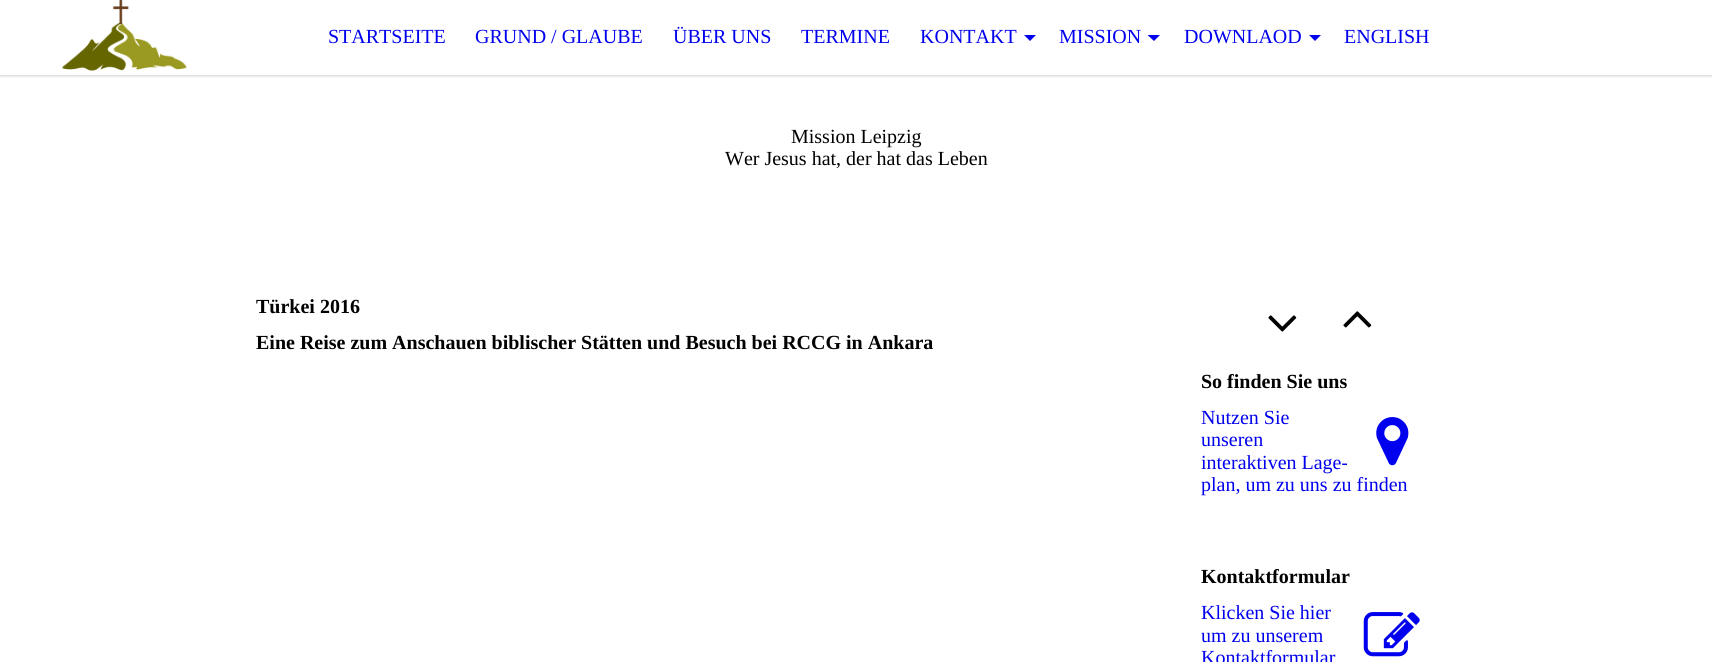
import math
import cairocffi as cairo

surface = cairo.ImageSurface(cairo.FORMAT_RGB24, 1712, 662)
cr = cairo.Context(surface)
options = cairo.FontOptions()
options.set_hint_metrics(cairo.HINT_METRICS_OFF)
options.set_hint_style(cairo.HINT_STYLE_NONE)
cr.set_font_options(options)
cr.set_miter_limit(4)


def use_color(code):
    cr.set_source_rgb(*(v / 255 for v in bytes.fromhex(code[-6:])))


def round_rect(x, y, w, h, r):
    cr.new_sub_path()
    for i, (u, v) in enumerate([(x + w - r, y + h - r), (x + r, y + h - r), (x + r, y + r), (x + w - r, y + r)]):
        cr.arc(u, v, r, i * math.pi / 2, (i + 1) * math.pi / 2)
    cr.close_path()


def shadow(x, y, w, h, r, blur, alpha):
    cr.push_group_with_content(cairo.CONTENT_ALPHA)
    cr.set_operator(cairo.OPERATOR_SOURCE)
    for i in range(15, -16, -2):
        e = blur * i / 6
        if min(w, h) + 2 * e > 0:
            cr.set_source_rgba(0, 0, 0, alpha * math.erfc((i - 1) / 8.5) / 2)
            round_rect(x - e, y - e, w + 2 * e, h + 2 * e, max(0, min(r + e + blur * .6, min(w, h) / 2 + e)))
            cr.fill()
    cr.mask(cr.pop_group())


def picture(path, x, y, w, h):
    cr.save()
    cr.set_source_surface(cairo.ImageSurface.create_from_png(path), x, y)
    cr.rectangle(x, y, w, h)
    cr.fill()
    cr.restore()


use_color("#ffffff")
cr.paint()
cr.save()
cr.rectangle(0, 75, 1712, 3)
cr.clip()
use_color("#000000")
shadow(0, 0, 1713, 75, 0, 2, 0.3)
cr.restore()
picture("img1.png", 62, 0, 125, 71)
cr.select_font_face("Liberation Serif")
cr.set_font_size(20)
use_color("#0000ee")
cr.move_to(328, 43)
cr.show_text("STARTSEITE")
cr.move_to(475, 43)
cr.show_text("GRUND / GLAUBE")
cr.move_to(673, 43)
cr.show_text("ÜBER UNS")
cr.move_to(801, 43)
cr.show_text("TERMINE")
cr.move_to(920, 43)
cr.show_text("KONTAKT")
cr.new_path()
cr.move_to(1024, 35)
cr.line_to(1036, 35)
cr.line_to(1030, 41)
cr.close_path()
cr.fill()
cr.move_to(1059, 43)
cr.show_text("MISSION")
cr.new_path()
cr.move_to(1147.5, 35)
cr.line_to(1160, 35)
cr.line_to(1154, 41)
cr.close_path()
cr.fill()
cr.move_to(1184, 43)
cr.show_text("DOWNLAOD")
cr.new_path()
cr.move_to(1309, 35)
cr.line_to(1321, 35)
cr.line_to(1315, 41)
cr.close_path()
cr.fill()
cr.move_to(1344, 43)
cr.show_text("ENGLISH")
use_color("#000000")
cr.move_to(791, 143)
cr.show_text("Mission Leipzig")
cr.move_to(725, 165)
cr.show_text("Wer Jesus hat, der hat das Leben")
cr.select_font_face("Liberation Serif", cairo.FONT_SLANT_NORMAL, cairo.FONT_WEIGHT_BOLD)
cr.move_to(256, 313)
cr.show_text("Türkei 2016")
cr.move_to(256, 349)
cr.show_text("Eine Reise zum Anschauen biblischer Stätten und Besuch bei RCCG in Ankara")
picture("img2.png", 1268, 315, 29, 17)
picture("img3.png", 1343, 311, 29, 17)
cr.move_to(1201, 388)
cr.show_text("So finden Sie uns")
cr.select_font_face("Liberation Serif")
use_color("#0000ee")
cr.move_to(1201, 424)
cr.show_text("Nutzen Sie")
cr.move_to(1201, 446)
cr.show_text("unseren")
cr.move_to(1201, 469)
cr.show_text("interaktiven Lage-")
cr.move_to(1201, 491)
cr.show_text("plan, um zu uns zu finden")
picture("img4.png", 1376, 417, 33, 49)
cr.select_font_face("Liberation Serif", cairo.FONT_SLANT_NORMAL, cairo.FONT_WEIGHT_BOLD)
use_color("#000000")
cr.move_to(1201, 583)
cr.show_text("Kontaktformular")
cr.select_font_face("Liberation Serif")
use_color("#0000ee")
cr.move_to(1201, 619)
cr.show_text("Klicken Sie hier")
cr.move_to(1201, 642)
cr.show_text("um zu unserem")
cr.move_to(1201, 664)
cr.show_text("Kontaktformular")
picture("img5.png", 1363, 612, 57, 45)
surface.write_to_png("result.png")
